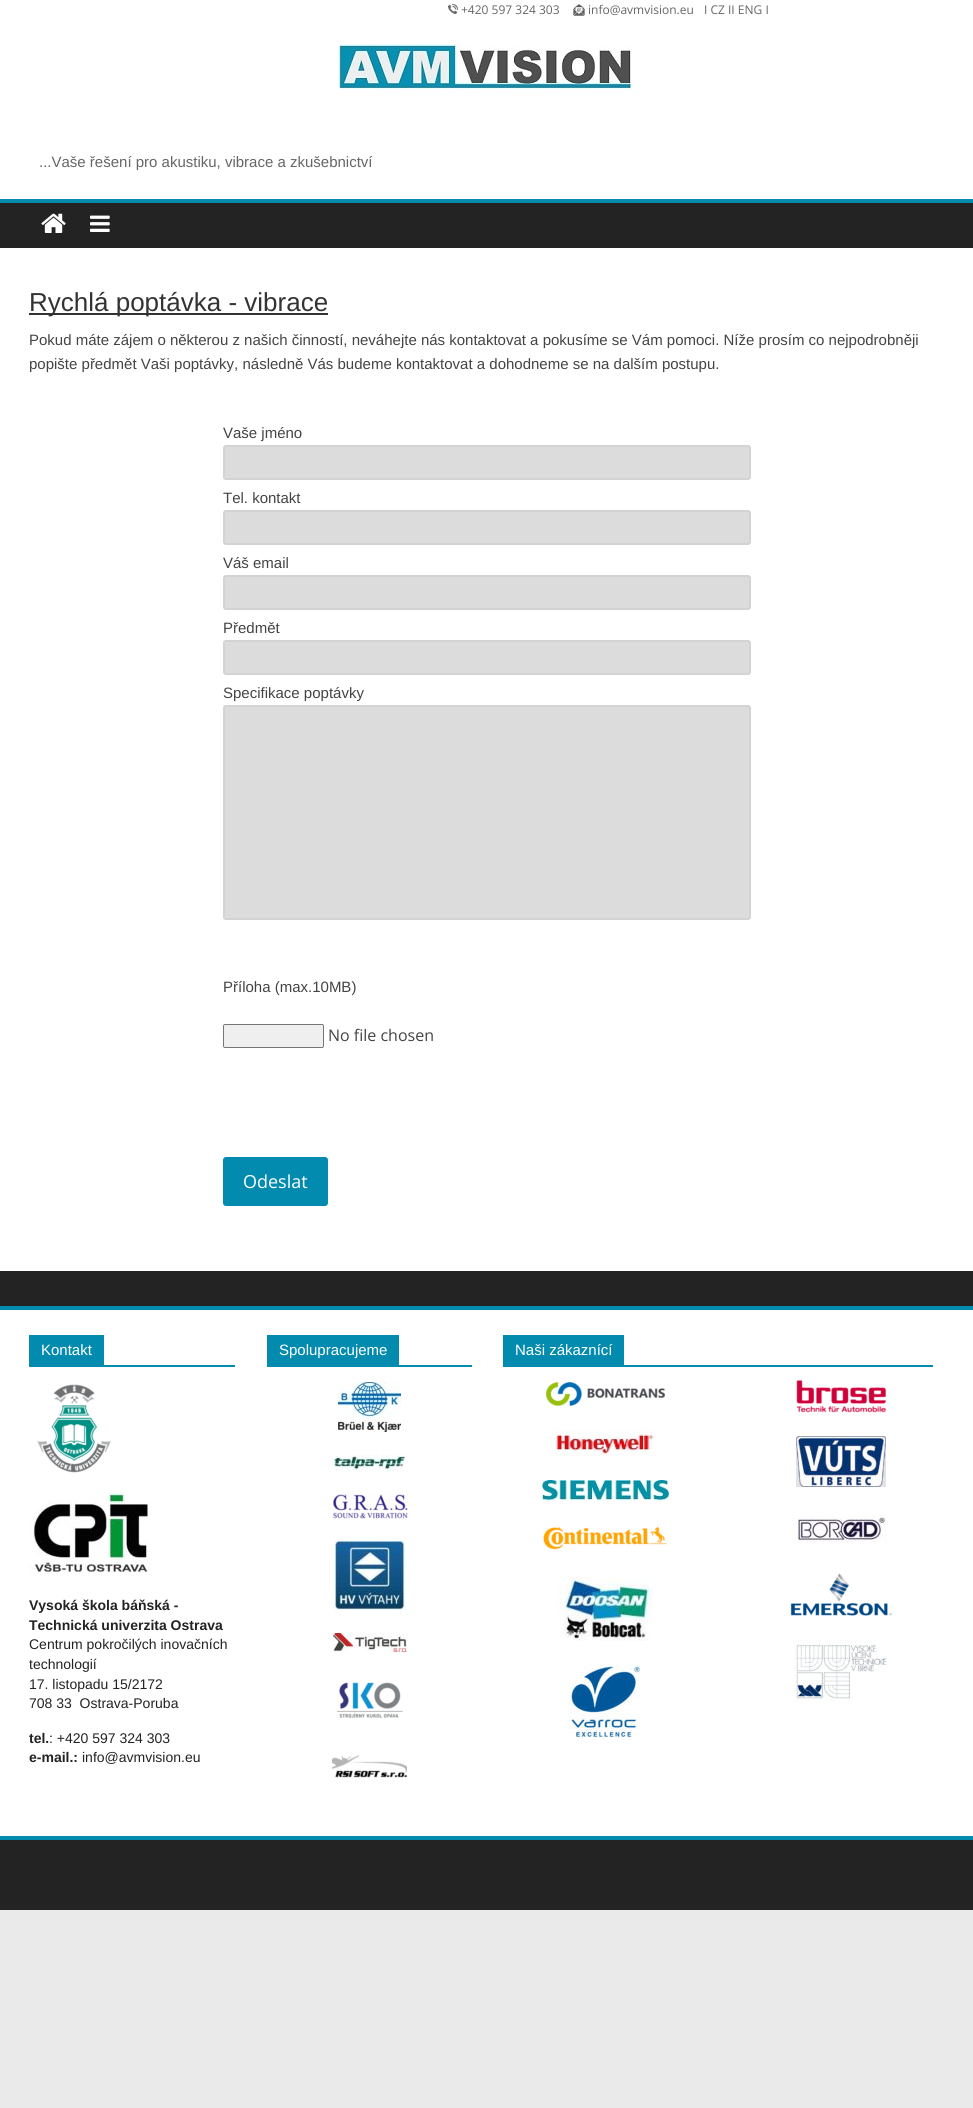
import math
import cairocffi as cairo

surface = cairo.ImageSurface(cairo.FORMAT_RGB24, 973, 2108)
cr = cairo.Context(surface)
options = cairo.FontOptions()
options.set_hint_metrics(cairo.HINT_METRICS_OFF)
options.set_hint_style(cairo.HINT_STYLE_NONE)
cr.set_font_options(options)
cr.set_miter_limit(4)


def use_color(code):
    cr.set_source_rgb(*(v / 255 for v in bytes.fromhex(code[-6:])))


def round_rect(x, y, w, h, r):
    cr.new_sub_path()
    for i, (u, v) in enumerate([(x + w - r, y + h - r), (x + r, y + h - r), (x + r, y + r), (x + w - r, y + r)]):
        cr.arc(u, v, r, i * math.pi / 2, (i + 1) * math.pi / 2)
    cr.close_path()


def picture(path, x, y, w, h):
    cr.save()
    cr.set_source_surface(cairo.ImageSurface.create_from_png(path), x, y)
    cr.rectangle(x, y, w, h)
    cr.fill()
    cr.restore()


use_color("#eaeaea")
cr.paint()
use_color("#ffffff")
cr.rectangle(0, 0, 973, 199)
cr.fill()
picture("img1.png", 448, 4, 10, 10)
cr.select_font_face("Open Sans")
cr.set_font_size(12)
use_color("#666666")
cr.move_to(461, 14)
cr.show_text("+420 597 324 303")
picture("img2.png", 573, 4, 12, 12)
cr.move_to(588, 14)
cr.show_text("info@avmvision.eu")
cr.move_to(704, 14)
cr.show_text("I CZ II ENG I")
picture("img3.png", 339, 44, 294, 46)
cr.select_font_face("Liberation Sans")
cr.set_font_size(15)
cr.move_to(39, 167)
cr.show_text("...Vaše řešení pro akustiku, vibrace a zkušebnictví")
use_color("#232323")
cr.rectangle(0, 203, 973, 45)
cr.fill()
use_color("#028baf")
cr.rectangle(0, 199, 973, 4)
cr.fill()
picture("img4.png", 41, 213, 25, 20)
picture("img5.png", 90, 215, 20, 17)
use_color("#ffffff")
cr.rectangle(0, 248, 973, 1023)
cr.fill()
use_color("#232323")
cr.rectangle(0, 1271, 973, 35)
cr.fill()
use_color("#333333")
cr.rectangle(29, 313, 299, 2)
cr.fill()
cr.set_font_size(26)
cr.move_to(29, 311)
cr.show_text("Rychlá poptávka - vibrace")
cr.set_font_size(15)
use_color("#444444")
cr.move_to(29, 345)
cr.show_text("Pokud máte zájem o některou z našich činností, neváhejte nás kontaktovat a pokusíme se Vám pomoci. Níže prosím co nejpodrobněji")
cr.move_to(29, 369)
cr.show_text("popište předmět Vaši poptávky, následně Vás budeme kontaktovat a dohodneme se na dalším postupu.")
cr.move_to(223, 438)
cr.show_text("Vaše jméno")
use_color("#dcdcdc")
round_rect(224, 446, 526, 33, 2)
cr.fill_preserve()
use_color("#d3d3d3")
cr.stroke()
use_color("#444444")
cr.move_to(223, 503)
cr.show_text("Tel. kontakt")
use_color("#dcdcdc")
round_rect(224, 511, 526, 33, 2)
cr.fill_preserve()
use_color("#d3d3d3")
cr.stroke()
use_color("#444444")
cr.move_to(223, 568)
cr.show_text("Váš email")
use_color("#dcdcdc")
round_rect(224, 576, 526, 33, 2)
cr.fill_preserve()
use_color("#d3d3d3")
cr.stroke()
use_color("#444444")
cr.move_to(223, 633)
cr.show_text("Předmět")
use_color("#dcdcdc")
round_rect(224, 641, 526, 33, 2)
cr.fill_preserve()
use_color("#d3d3d3")
cr.stroke()
use_color("#444444")
cr.move_to(223, 698)
cr.show_text("Specifikace poptávky")
use_color("#dcdcdc")
round_rect(224, 706, 526, 213, 2)
cr.fill_preserve()
use_color("#d3d3d3")
cr.stroke()
use_color("#444444")
cr.move_to(223, 992)
cr.show_text("Příloha (max.10MB)")
use_color("#efefef")
round_rect(223.5, 1024.5, 100, 23, 1.5)
cr.fill_preserve()
use_color("#767676")
cr.set_line_width(1)
cr.stroke()
cr.select_font_face("Open Sans")
cr.set_font_size(16)
use_color("#444444")
cr.move_to(328, 1041)
cr.show_text("No file chosen")
use_color("#028baf")
round_rect(223, 1157, 105, 49, 3)
cr.fill()
cr.set_font_size(18)
use_color("#ffffff")
cr.move_to(243, 1188)
cr.show_text("Odeslat")
cr.rectangle(0, 1310, 973, 526)
cr.fill()
use_color("#028baf")
cr.rectangle(0, 1306, 973, 4)
cr.fill()
cr.rectangle(0, 1836, 973, 4)
cr.fill()
cr.rectangle(29, 1365, 206, 2)
cr.fill()
cr.rectangle(29, 1335, 75, 30)
cr.fill()
cr.select_font_face("Liberation Sans")
cr.set_font_size(15)
use_color("#ffffff")
cr.move_to(41, 1355)
cr.show_text("Kontakt")
picture("img6.png", 37, 1384, 74, 89)
picture("img7.png", 29, 1492, 120, 80)
cr.select_font_face("Liberation Sans", cairo.FONT_SLANT_NORMAL, cairo.FONT_WEIGHT_BOLD)
cr.set_font_size(14)
use_color("#232323")
cr.move_to(29, 1610)
cr.show_text("Vysoká škola báňská -")
cr.move_to(29, 1630)
cr.show_text("Technická univerzita Ostrava")
cr.select_font_face("Liberation Sans")
cr.move_to(29, 1649)
cr.show_text("Centrum pokročilých inovačních")
cr.move_to(29, 1669)
cr.show_text("technologií")
cr.move_to(29, 1689)
cr.show_text("17. listopadu 15/2172")
cr.move_to(29, 1708)
cr.show_text("708 33  Ostrava-Poruba")
cr.select_font_face("Liberation Sans", cairo.FONT_SLANT_NORMAL, cairo.FONT_WEIGHT_BOLD)
cr.move_to(29, 1743)
cr.show_text("tel.")
cr.select_font_face("Liberation Sans")
cr.move_to(49, 1743)
cr.show_text(": +420 597 324 303")
cr.select_font_face("Liberation Sans", cairo.FONT_SLANT_NORMAL, cairo.FONT_WEIGHT_BOLD)
cr.move_to(29, 1762)
cr.show_text("e-mail.:")
cr.select_font_face("Liberation Sans")
cr.move_to(82, 1762)
cr.show_text("info@avmvision.eu")
use_color("#028baf")
cr.rectangle(267, 1365, 205, 2)
cr.fill()
cr.rectangle(267, 1335, 132, 30)
cr.fill()
cr.set_font_size(15)
use_color("#ffffff")
cr.move_to(279, 1355)
cr.show_text("Spolupracujeme")
picture("img8.png", 338, 1382, 63, 50)
picture("img9.png", 334, 1455, 71, 16)
picture("img10.png", 333, 1494, 75, 25)
picture("img11.png", 335, 1541, 70, 69)
picture("img12.png", 333, 1633, 74, 19)
picture("img13.png", 336, 1682, 67, 36)
picture("img14.png", 332, 1755, 75, 23)
use_color("#028baf")
cr.rectangle(503, 1365, 430, 2)
cr.fill()
cr.rectangle(503, 1335, 121, 30)
cr.fill()
use_color("#ffffff")
cr.move_to(515, 1355)
cr.show_text("Naši zákaznící")
picture("img15.png", 546, 1382, 119, 24)
picture("img16.png", 548, 1429, 108, 28)
picture("img17.png", 542, 1480, 127, 20)
picture("img18.png", 543, 1526, 124, 24)
picture("img19.png", 557, 1577, 96, 64)
picture("img20.png", 568, 1665, 72, 72)
picture("img21.png", 796, 1380, 91, 33)
picture("img22.png", 796, 1436, 90, 51)
picture("img23.png", 791, 1514, 96, 28)
picture("img24.png", 790, 1573, 103, 43)
picture("img25.png", 794, 1640, 95, 63)
use_color("#232323")
cr.rectangle(0, 1840, 973, 70)
cr.fill()
surface.write_to_png("result.png")
